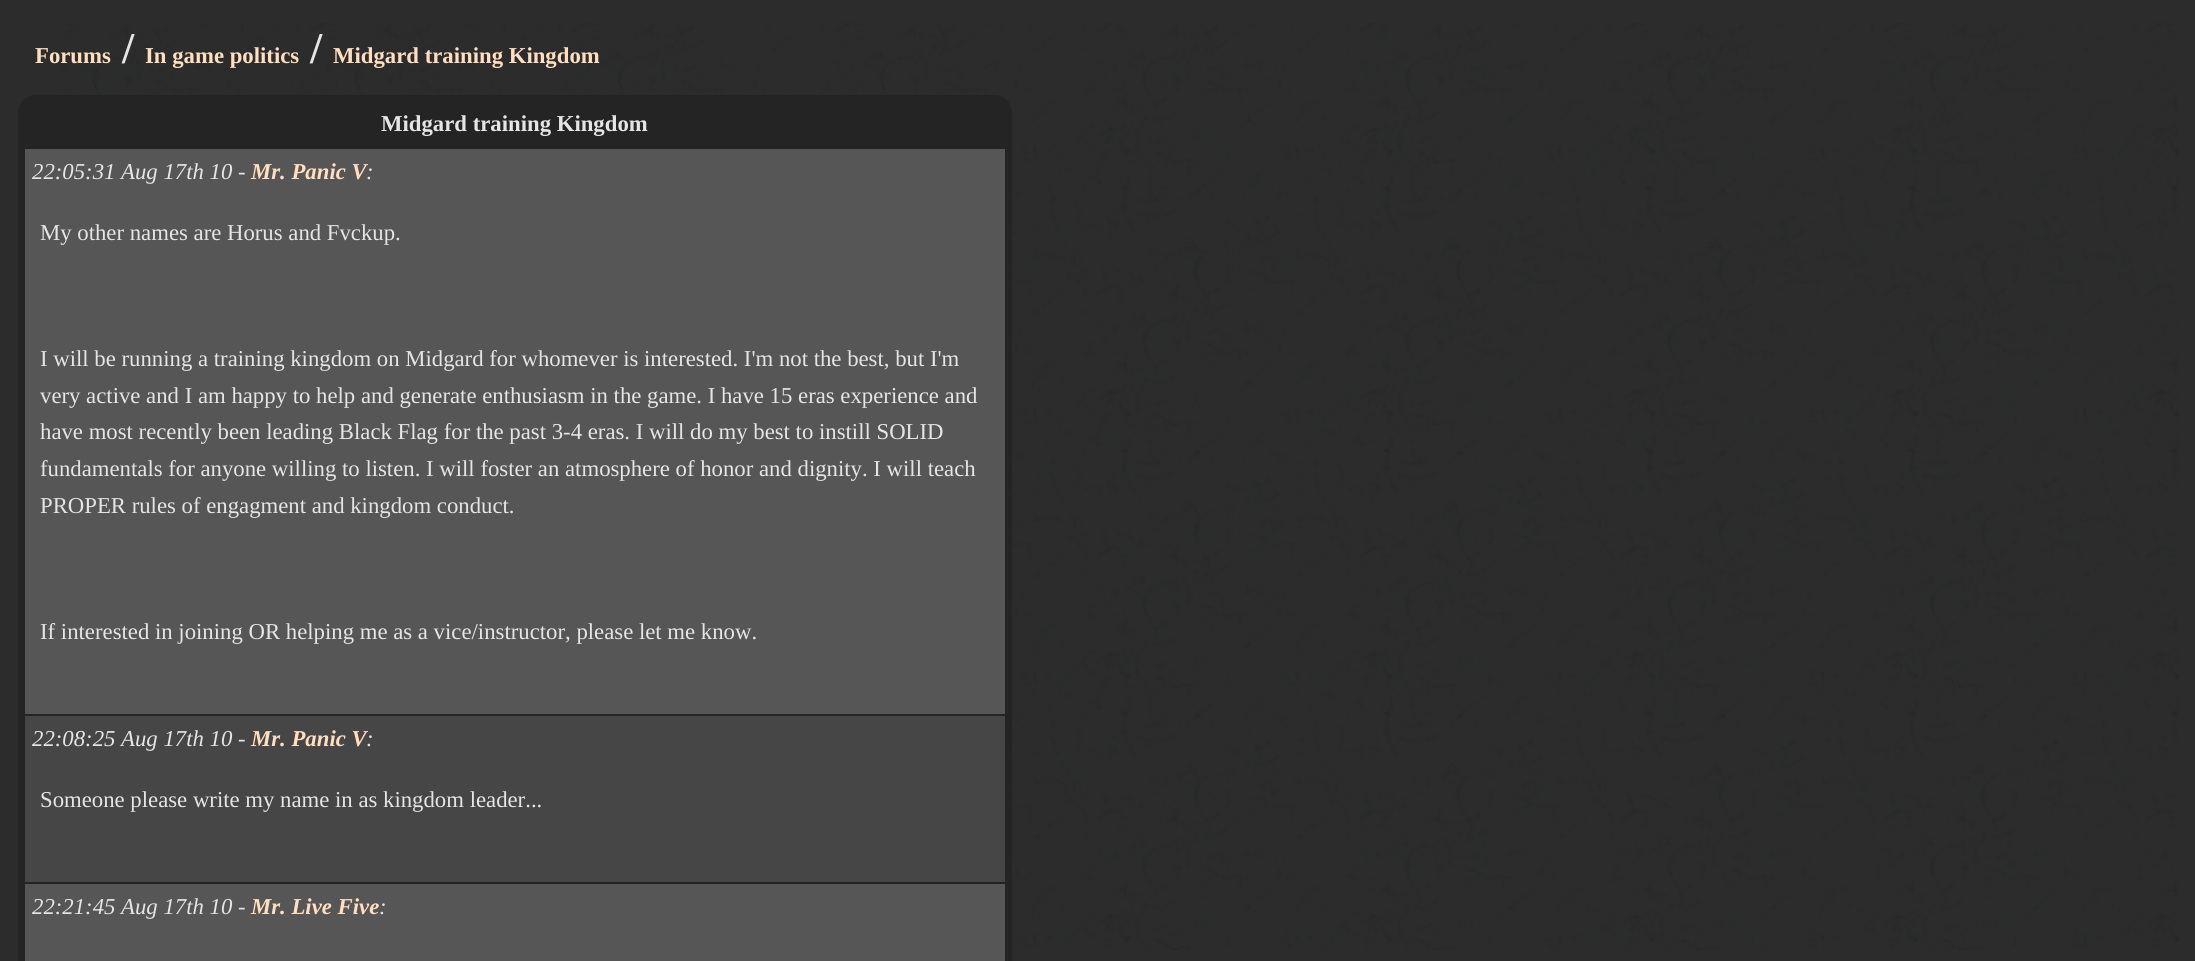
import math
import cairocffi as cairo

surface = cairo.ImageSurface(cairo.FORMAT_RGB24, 2195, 961)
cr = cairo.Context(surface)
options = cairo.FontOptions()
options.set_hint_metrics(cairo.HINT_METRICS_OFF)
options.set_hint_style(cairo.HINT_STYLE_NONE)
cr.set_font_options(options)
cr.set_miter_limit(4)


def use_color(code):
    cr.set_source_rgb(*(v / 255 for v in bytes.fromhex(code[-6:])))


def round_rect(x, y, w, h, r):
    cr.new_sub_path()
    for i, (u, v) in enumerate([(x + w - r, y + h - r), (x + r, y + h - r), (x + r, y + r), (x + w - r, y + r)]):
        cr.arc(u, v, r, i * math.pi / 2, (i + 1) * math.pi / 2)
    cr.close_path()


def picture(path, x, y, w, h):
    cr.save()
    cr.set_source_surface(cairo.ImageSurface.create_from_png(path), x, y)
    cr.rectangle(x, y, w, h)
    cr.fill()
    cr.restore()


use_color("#2c2c2c")
cr.paint()
picture("img1.png", 60, 23, 2119, 927)
cr.select_font_face("Liberation Serif", cairo.FONT_SLANT_NORMAL, cairo.FONT_WEIGHT_BOLD)
cr.set_font_size(22.75)
use_color("#ffdfbf")
cr.move_to(35, 63)
cr.show_text("Forums")
cr.set_font_size(44)
use_color("#e5e5e5")
cr.move_to(122, 63)
cr.show_text("/")
cr.set_font_size(22.75)
use_color("#ffdfbf")
cr.move_to(145, 63)
cr.show_text("In game politics")
cr.set_font_size(44)
use_color("#e5e5e5")
cr.move_to(310, 63)
cr.show_text("/")
cr.set_font_size(22.75)
use_color("#ffdfbf")
cr.move_to(333, 63)
cr.show_text("Midgard training Kingdom")
use_color("#242424")
round_rect(18, 95, 994, 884, 18)
cr.fill()
use_color("#e5e5e5")
cr.move_to(381, 131)
cr.show_text("Midgard training Kingdom")
use_color("#565656")
cr.rectangle(25, 149, 980, 565)
cr.fill()
cr.select_font_face("Liberation Serif", cairo.FONT_SLANT_ITALIC)
use_color("#e5e5e5")
cr.move_to(32, 179)
cr.show_text("22:05:31 Aug 17th 10 -")
cr.select_font_face("Liberation Serif", cairo.FONT_SLANT_ITALIC, cairo.FONT_WEIGHT_BOLD)
use_color("#ffdfbf")
cr.move_to(251, 179)
cr.show_text("Mr. Panic V")
cr.select_font_face("Liberation Serif", cairo.FONT_SLANT_ITALIC)
use_color("#e5e5e5")
cr.move_to(366, 179)
cr.show_text(":")
cr.select_font_face("Liberation Serif")
cr.move_to(40, 240)
cr.show_text("My other names are Horus and Fvckup.")
cr.move_to(40, 366)
cr.show_text("I will be running a training kingdom on Midgard for whomever is interested. I'm not the best, but I'm")
cr.move_to(40, 403)
cr.show_text("very active and I am happy to help and generate enthusiasm in the game. I have 15 eras experience and")
cr.move_to(40, 439)
cr.show_text("have most recently been leading Black Flag for the past 3-4 eras. I will do my best to instill SOLID")
cr.move_to(40, 476)
cr.show_text("fundamentals for anyone willing to listen. I will foster an atmosphere of honor and dignity. I will teach")
cr.move_to(40, 513)
cr.show_text("PROPER rules of engagment and kingdom conduct.")
cr.move_to(40, 639)
cr.show_text("If interested in joining OR helping me as a vice/instructor, please let me know.")
use_color("#464646")
cr.rectangle(25, 716, 980, 166)
cr.fill()
cr.select_font_face("Liberation Serif", cairo.FONT_SLANT_ITALIC)
use_color("#e5e5e5")
cr.move_to(32, 746)
cr.show_text("22:08:25 Aug 17th 10 -")
cr.select_font_face("Liberation Serif", cairo.FONT_SLANT_ITALIC, cairo.FONT_WEIGHT_BOLD)
use_color("#ffdfbf")
cr.move_to(251, 746)
cr.show_text("Mr. Panic V")
cr.select_font_face("Liberation Serif", cairo.FONT_SLANT_ITALIC)
use_color("#e5e5e5")
cr.move_to(366, 746)
cr.show_text(":")
cr.select_font_face("Liberation Serif")
cr.move_to(40, 807)
cr.show_text("Someone please write my name in as kingdom leader...")
use_color("#565656")
cr.rectangle(25, 884, 980, 77)
cr.fill()
cr.select_font_face("Liberation Serif", cairo.FONT_SLANT_ITALIC)
use_color("#e5e5e5")
cr.move_to(32, 914)
cr.show_text("22:21:45 Aug 17th 10 -")
cr.select_font_face("Liberation Serif", cairo.FONT_SLANT_ITALIC, cairo.FONT_WEIGHT_BOLD)
use_color("#ffdfbf")
cr.move_to(251, 914)
cr.show_text("Mr. Live Five")
cr.select_font_face("Liberation Serif", cairo.FONT_SLANT_ITALIC)
use_color("#e5e5e5")
cr.move_to(379, 914)
cr.show_text(":")
surface.write_to_png("result.png")
